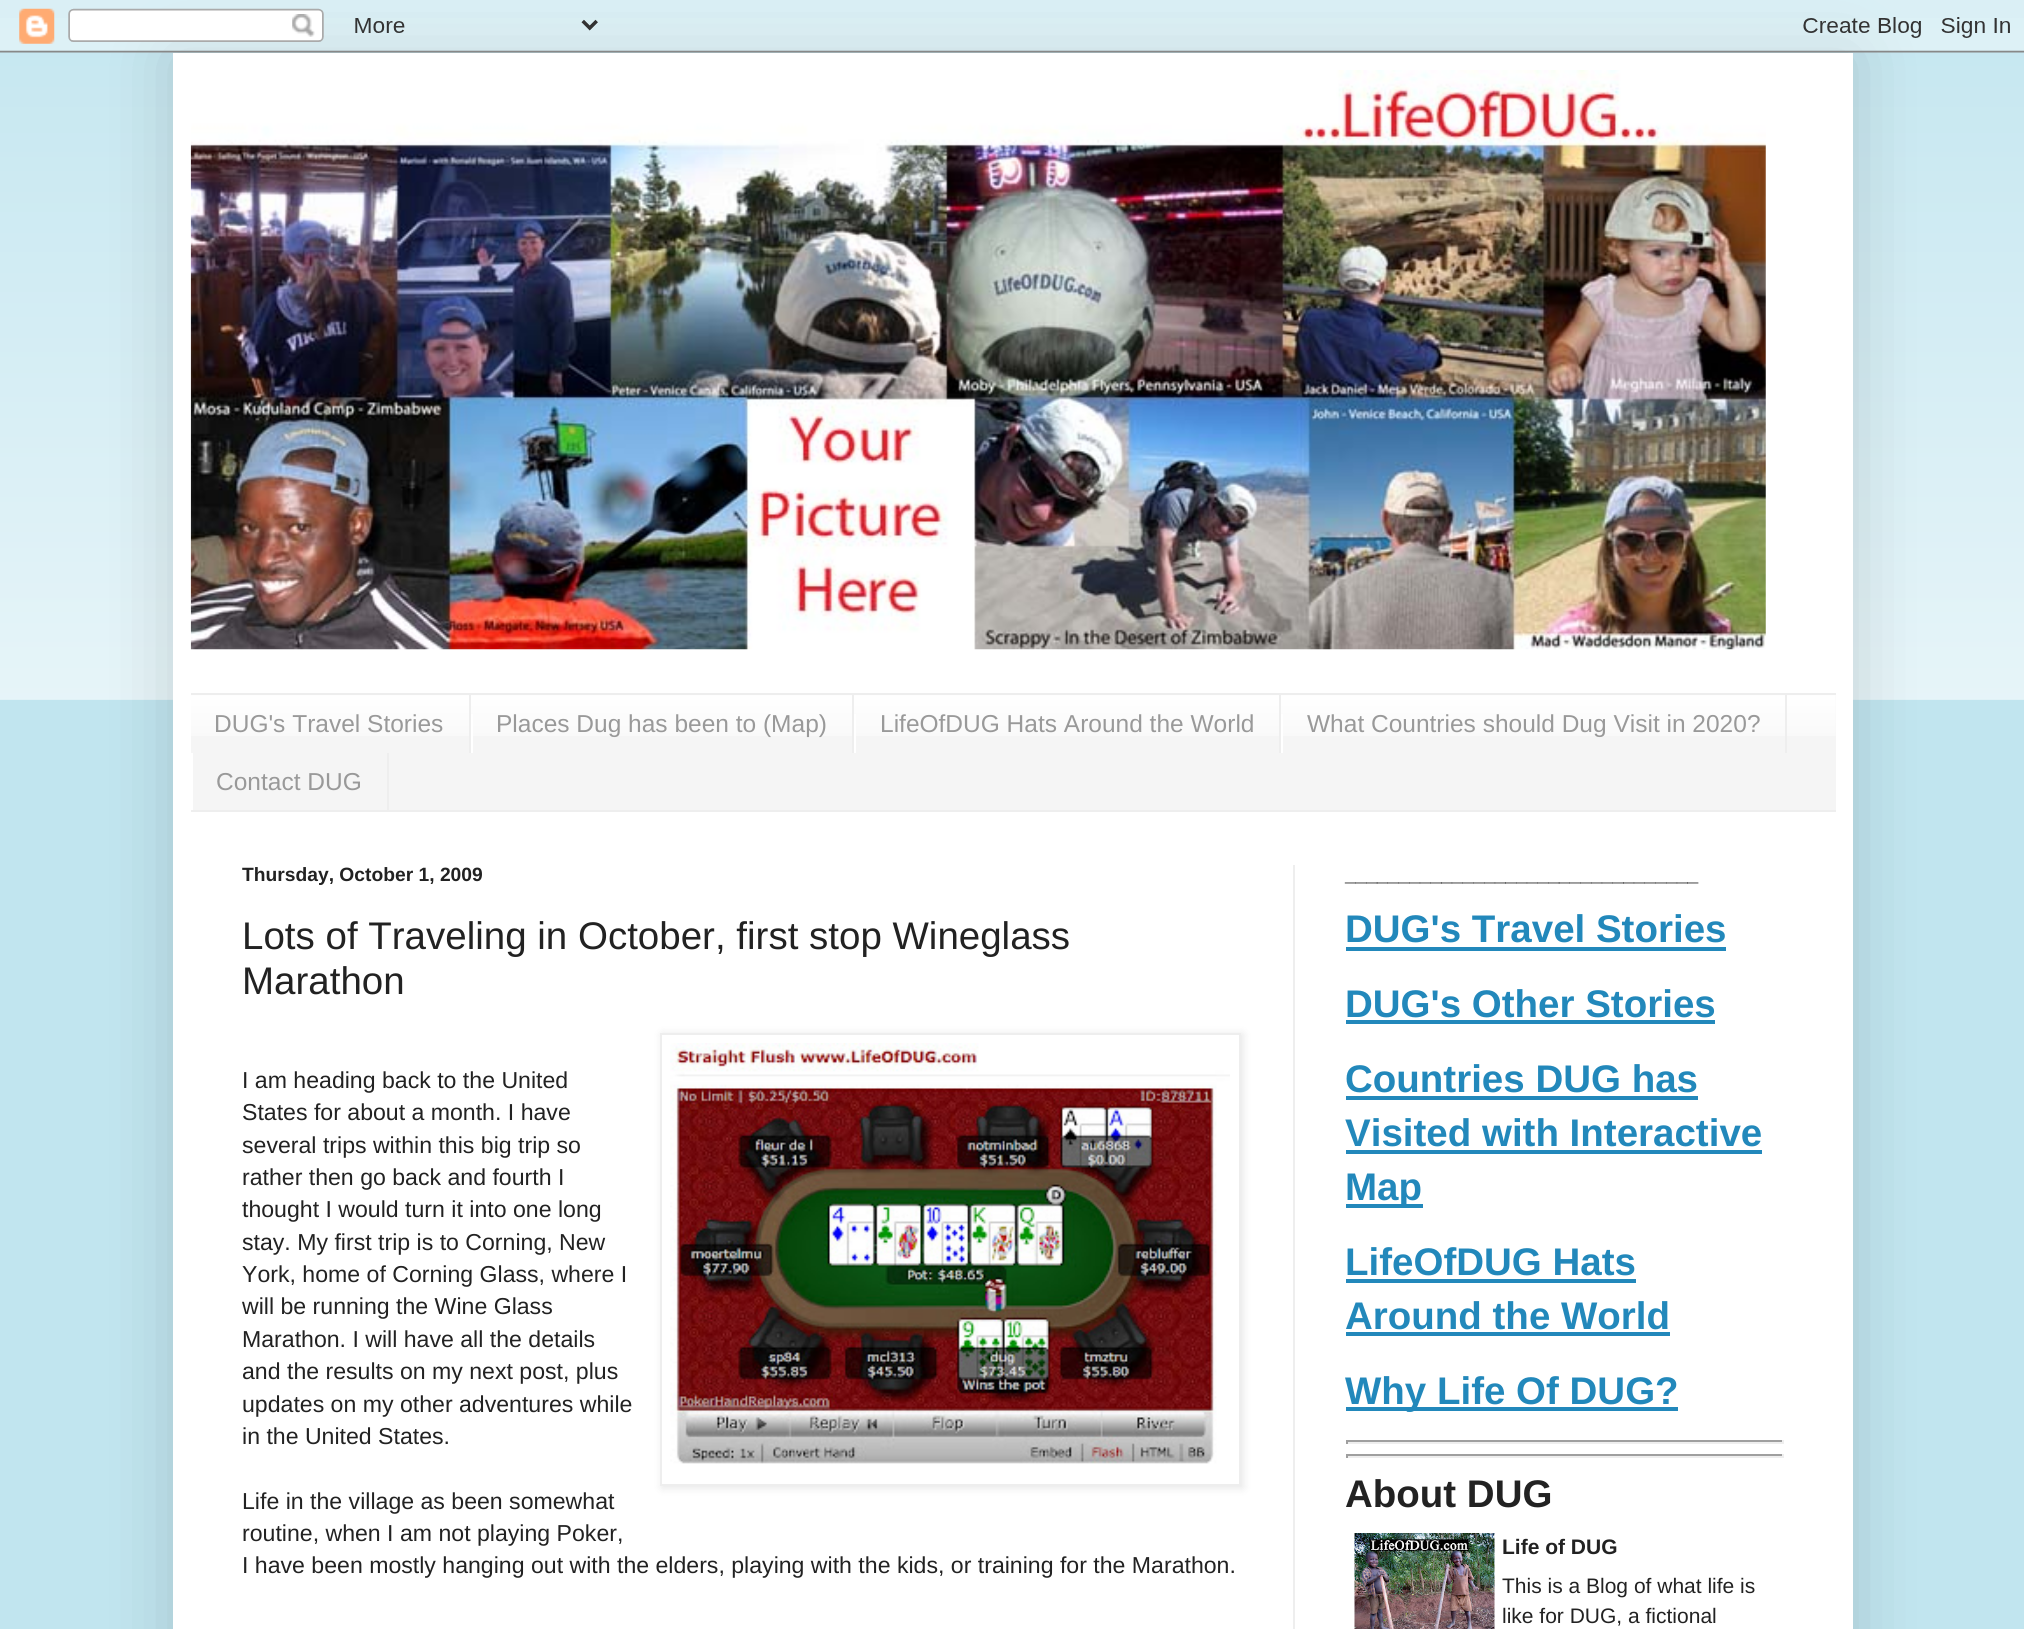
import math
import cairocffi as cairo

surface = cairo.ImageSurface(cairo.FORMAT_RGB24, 2024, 1629)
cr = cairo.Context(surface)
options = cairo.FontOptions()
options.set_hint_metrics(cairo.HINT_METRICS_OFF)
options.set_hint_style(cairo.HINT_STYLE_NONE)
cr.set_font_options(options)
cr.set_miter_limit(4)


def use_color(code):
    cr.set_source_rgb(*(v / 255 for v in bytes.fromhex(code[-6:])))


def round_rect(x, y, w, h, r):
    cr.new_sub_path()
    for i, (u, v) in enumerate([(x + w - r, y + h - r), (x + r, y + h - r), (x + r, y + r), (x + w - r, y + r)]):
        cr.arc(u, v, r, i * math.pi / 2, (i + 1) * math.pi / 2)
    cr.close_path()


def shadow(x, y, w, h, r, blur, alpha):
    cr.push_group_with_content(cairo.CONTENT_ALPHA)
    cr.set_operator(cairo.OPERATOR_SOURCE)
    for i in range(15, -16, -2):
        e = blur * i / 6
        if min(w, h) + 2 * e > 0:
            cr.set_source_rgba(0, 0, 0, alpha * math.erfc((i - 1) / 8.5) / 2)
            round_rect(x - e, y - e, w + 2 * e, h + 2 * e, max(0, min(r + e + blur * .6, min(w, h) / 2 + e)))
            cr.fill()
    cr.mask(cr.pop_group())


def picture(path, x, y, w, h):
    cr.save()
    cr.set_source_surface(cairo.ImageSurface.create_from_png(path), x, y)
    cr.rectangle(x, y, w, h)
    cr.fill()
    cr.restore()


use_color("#c1e5ef")
cr.paint()
picture("img2.png", 0, 18, 2024, 682)
use_color("#000000")
shadow(173, 53, 1680, 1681, 0, 35, 0.15)
picture("img1.png", 0, 0, 2024, 53)
use_color("#ffffff")
cr.rectangle(173, 53, 1680, 1576)
cr.fill()
picture("img3.png", 190, 70, 1576, 580)
use_color("#f5f5f5")
cr.rectangle(191, 695, 1645, 115)
cr.fill()
picture("img4.png", 191, 695, 1645, 41)
use_color("#eeeeee")
cr.rectangle(191, 693, 1645, 2)
cr.fill()
cr.rectangle(191, 810, 1645, 2)
cr.fill()
cr.rectangle(469, 695, 2, 58)
cr.fill()
cr.select_font_face("Liberation Sans")
cr.set_font_size(24.5)
use_color("#999999")
cr.move_to(214, 732)
cr.show_text("DUG's Travel Stories")
use_color("#eeeeee")
cr.rectangle(852, 695, 2, 58)
cr.fill()
use_color("#ffffff")
cr.rectangle(471, 714, 2, 39)
cr.fill()
use_color("#999999")
cr.move_to(496, 732)
cr.show_text("Places Dug has been to (Map)")
use_color("#eeeeee")
cr.rectangle(1279, 695, 2, 58)
cr.fill()
use_color("#ffffff")
cr.rectangle(854, 714, 2, 39)
cr.fill()
use_color("#999999")
cr.move_to(880, 732)
cr.show_text("LifeOfDUG Hats Around the World")
use_color("#eeeeee")
cr.rectangle(1785, 695, 2, 58)
cr.fill()
use_color("#ffffff")
cr.rectangle(1281, 714, 2, 39)
cr.fill()
use_color("#999999")
cr.move_to(1307, 732)
cr.show_text("What Countries should Dug Visit in 2020?")
use_color("#eeeeee")
cr.rectangle(387, 753, 2, 57)
cr.fill()
use_color("#ffffff")
cr.rectangle(191, 753, 2, 57)
cr.fill()
use_color("#999999")
cr.move_to(216, 790)
cr.show_text("Contact DUG")
use_color("#eeeeee")
cr.rectangle(1293, 865, 2, 764)
cr.fill()
cr.select_font_face("Liberation Sans", cairo.FONT_SLANT_NORMAL, cairo.FONT_WEIGHT_BOLD)
cr.set_font_size(19.25)
use_color("#222222")
cr.move_to(242, 881)
cr.show_text("Thursday, October 1, 2009")
cr.select_font_face("Liberation Sans")
cr.set_font_size(38.5)
cr.move_to(242, 949)
cr.show_text("Lots of Traveling in October, first stop Wineglass")
cr.move_to(242, 994)
cr.show_text("Marathon")
cr.set_font_size(23.1)
cr.move_to(242, 1088)
cr.show_text("I am heading back to the United")
use_color("#000000")
shadow(662, 1034, 581, 454, 0, 4.5, 0.1)
use_color("#ffffff")
cr.rectangle(661, 1034, 579, 451)
cr.fill_preserve()
use_color("#eeeeee")
cr.stroke()
picture("img5.png", 670, 1043, 560, 421)
use_color("#222222")
cr.move_to(242, 1120)
cr.show_text("States for about a month. I have")
cr.move_to(242, 1153)
cr.show_text("several trips within this big trip so")
cr.move_to(242, 1185)
cr.show_text("rather then go back and fourth I")
cr.move_to(242, 1217)
cr.show_text("thought I would turn it into one long")
cr.move_to(242, 1250)
cr.show_text("stay. My first trip is to Corning, New")
cr.move_to(242, 1282)
cr.show_text("York, home of Corning Glass, where I")
cr.move_to(242, 1314)
cr.show_text("will be running the Wine Glass")
cr.move_to(242, 1347)
cr.show_text("Marathon. I will have all the details")
cr.move_to(242, 1379)
cr.show_text("and the results on my next post, plus")
cr.move_to(242, 1412)
cr.show_text("updates on my other adventures while")
cr.move_to(242, 1444)
cr.show_text("in the United States.")
cr.move_to(242, 1509)
cr.show_text("Life in the village as been somewhat")
cr.move_to(242, 1541)
cr.show_text("routine, when I am not playing Poker,")
cr.move_to(242, 1573)
cr.show_text("I have been mostly hanging out with the elders, playing with the kids, or training for the Marathon.")
cr.select_font_face("Liberation Sans", cairo.FONT_SLANT_NORMAL, cairo.FONT_WEIGHT_BOLD)
cr.set_font_size(19.25)
use_color("#000000")
cr.move_to(1345, 881)
cr.show_text("_________________________________")
cr.set_font_size(38.5)
use_color("#2288bb")
cr.move_to(1345, 942)
cr.show_text("DUG's Travel Stories")
cr.rectangle(1346, 947, 380, 4)
cr.fill()
cr.move_to(1345, 1017)
cr.show_text("DUG's Other Stories")
cr.rectangle(1346, 1020, 369, 4)
cr.fill()
cr.move_to(1345, 1092)
cr.show_text("Countries DUG has")
cr.rectangle(1346, 1096, 352, 4)
cr.fill()
cr.move_to(1345, 1146)
cr.show_text("Visited with Interactive")
cr.rectangle(1346, 1150, 416, 4)
cr.fill()
cr.rectangle(1346, 1204, 77, 4)
cr.fill()
cr.move_to(1345, 1200)
cr.show_text("Map")
cr.move_to(1345, 1275)
cr.show_text("LifeOfDUG Hats")
cr.rectangle(1346, 1279, 290, 4)
cr.fill()
cr.move_to(1345, 1329)
cr.show_text("Around the World")
cr.rectangle(1346, 1332, 324, 4)
cr.fill()
cr.rectangle(1346, 1407, 332, 4)
cr.fill()
cr.move_to(1345, 1404)
cr.show_text("Why Life Of DUG?")
use_color("#9f9f9f")
cr.rectangle(1346, 1440, 437, 2)
cr.fill()
use_color("#eeeeee")
cr.rectangle(1782, 1440, 2, 4)
cr.fill()
cr.rectangle(1346, 1442, 437, 2)
cr.fill()
use_color("#9f9f9f")
cr.rectangle(1346, 1440, 2, 4)
cr.fill()
cr.rectangle(1346, 1454, 437, 2)
cr.fill()
use_color("#eeeeee")
cr.rectangle(1782, 1454, 2, 4)
cr.fill()
cr.rectangle(1346, 1456, 437, 2)
cr.fill()
use_color("#9f9f9f")
cr.rectangle(1346, 1454, 2, 4)
cr.fill()
use_color("#222222")
cr.move_to(1345, 1507)
cr.show_text("About DUG")
picture("img6.png", 1354, 1533, 141, 96)
cr.set_font_size(21)
cr.move_to(1502, 1554)
cr.show_text("Life of DUG")
cr.select_font_face("Liberation Sans")
cr.move_to(1502, 1593)
cr.show_text("This is a Blog of what life is")
cr.move_to(1502, 1623)
cr.show_text("like for DUG, a fictional")
surface.write_to_png("result.png")
